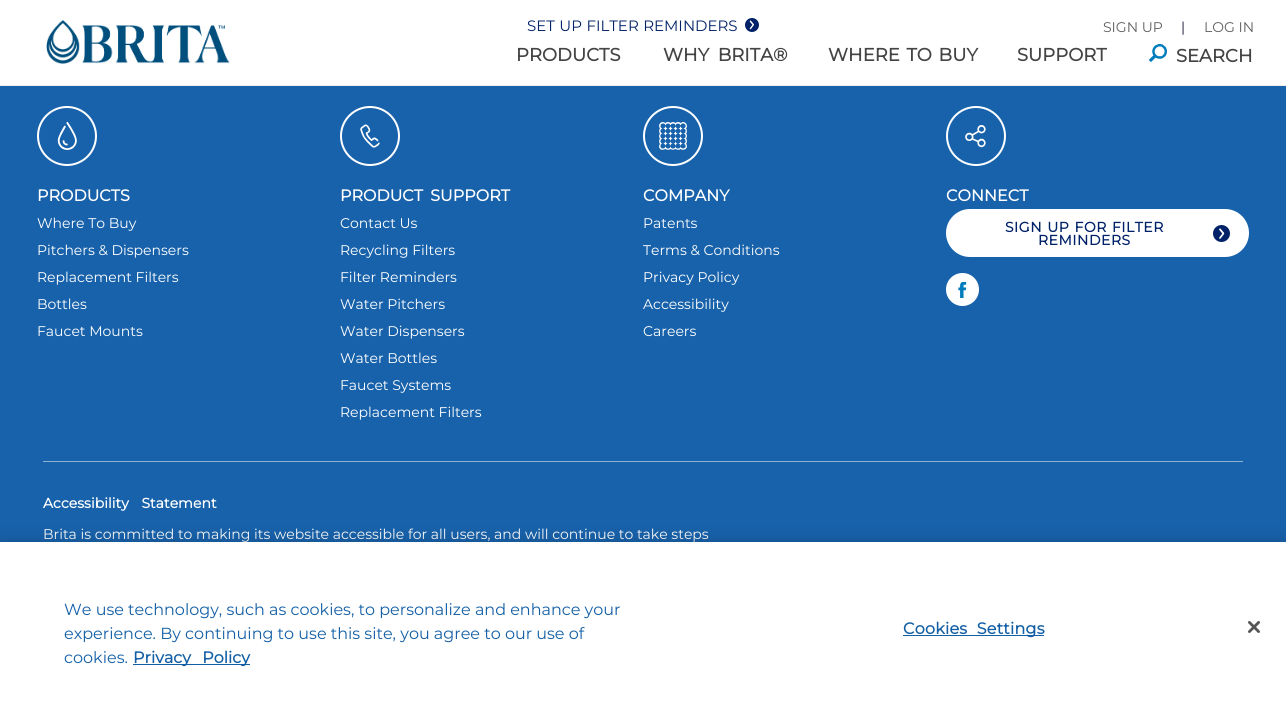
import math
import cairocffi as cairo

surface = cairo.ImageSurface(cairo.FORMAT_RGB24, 1286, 716)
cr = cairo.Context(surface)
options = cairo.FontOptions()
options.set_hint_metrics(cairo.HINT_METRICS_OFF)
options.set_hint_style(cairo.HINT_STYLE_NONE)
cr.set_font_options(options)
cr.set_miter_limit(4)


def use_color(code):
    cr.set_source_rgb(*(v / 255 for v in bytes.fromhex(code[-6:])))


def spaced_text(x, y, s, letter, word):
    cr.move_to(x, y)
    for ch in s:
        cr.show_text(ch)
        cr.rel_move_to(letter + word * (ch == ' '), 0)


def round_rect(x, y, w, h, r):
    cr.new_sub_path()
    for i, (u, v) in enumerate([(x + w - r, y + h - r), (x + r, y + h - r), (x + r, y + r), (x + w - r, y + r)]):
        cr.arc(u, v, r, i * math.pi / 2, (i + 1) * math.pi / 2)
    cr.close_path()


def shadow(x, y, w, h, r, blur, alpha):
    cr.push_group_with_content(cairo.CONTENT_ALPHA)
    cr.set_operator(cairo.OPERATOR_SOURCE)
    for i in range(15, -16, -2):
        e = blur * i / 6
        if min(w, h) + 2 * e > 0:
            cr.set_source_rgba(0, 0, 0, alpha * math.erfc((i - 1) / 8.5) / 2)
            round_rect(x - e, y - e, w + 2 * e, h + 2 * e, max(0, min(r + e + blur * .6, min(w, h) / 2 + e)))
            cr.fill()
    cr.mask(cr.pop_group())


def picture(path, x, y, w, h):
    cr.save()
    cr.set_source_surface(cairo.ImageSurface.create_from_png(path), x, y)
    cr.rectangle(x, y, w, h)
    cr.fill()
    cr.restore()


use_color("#ffffff")
cr.paint()
cr.select_font_face("Montserrat")
cr.set_font_size(15)
use_color("#012169")
spaced_text(527, 31, "SET UP FILTER REMINDERS", 0, 0.5)
cr.new_path()
cr.arc(752, 25, 7, 0, 2 * math.pi)
cr.fill()
picture("img1.png", 749, 20, 5, 10)
use_color("#eeeeee")
cr.rectangle(0, 85, 1286, 1)
cr.fill()
picture("img2.png", 46, 20, 184, 44)
cr.set_font_size(14)
use_color("#606060")
cr.move_to(1103, 32)
cr.show_text("SIGN UP")
use_color("#130f30")
cr.move_to(1181, 32)
cr.show_text("|")
use_color("#606060")
cr.move_to(1204, 32)
cr.show_text("LOG IN")
cr.select_font_face("Montserrat", cairo.FONT_SLANT_NORMAL, cairo.FONT_WEIGHT_BOLD)
cr.set_font_size(18)
use_color("#444444")
cr.move_to(516, 61)
cr.show_text("PRODUCTS")
spaced_text(663, 61, "WHY BRITA®", 0, 4)
spaced_text(828, 61, "WHERE TO BUY", 0, 2)
cr.move_to(1017, 61)
cr.show_text("SUPPORT")
picture("img3.png", 1149, 44, 18, 18)
cr.move_to(1176, 62)
cr.show_text("SEARCH")
use_color("#1862ab")
cr.rectangle(0, 86, 1286, 456)
cr.fill()
cr.arc(67, 136, 29, 0, 2 * math.pi)
use_color("#ffffff")
cr.stroke()
picture("img4.png", 57, 122, 20, 28)
cr.set_font_size(16)
cr.move_to(37, 201)
cr.show_text("PRODUCTS")
cr.select_font_face("Montserrat")
cr.set_font_size(14)
cr.move_to(37, 228)
cr.show_text("Where To Buy")
cr.move_to(37, 255)
cr.show_text("Pitchers & Dispensers")
cr.move_to(37, 282)
cr.show_text("Replacement Filters")
cr.move_to(37, 309)
cr.show_text("Bottles")
cr.move_to(37, 336)
cr.show_text("Faucet Mounts")
cr.new_path()
cr.arc(370, 136, 29, 0, 2 * math.pi)
cr.stroke()
picture("img5.png", 360, 124, 20, 24)
cr.select_font_face("Montserrat", cairo.FONT_SLANT_NORMAL, cairo.FONT_WEIGHT_BOLD)
cr.set_font_size(16)
spaced_text(340, 201, "PRODUCT SUPPORT", 0, 3)
cr.select_font_face("Montserrat")
cr.set_font_size(14)
cr.move_to(340, 228)
cr.show_text("Contact Us")
cr.move_to(340, 255)
cr.show_text("Recycling Filters")
cr.move_to(340, 282)
cr.show_text("Filter Reminders")
cr.move_to(340, 309)
cr.show_text("Water Pitchers")
cr.move_to(340, 336)
cr.show_text("Water Dispensers")
cr.move_to(340, 363)
cr.show_text("Water Bottles")
cr.move_to(340, 390)
cr.show_text("Faucet Systems")
cr.move_to(340, 417)
cr.show_text("Replacement Filters")
cr.new_path()
cr.arc(673, 136, 29, 0, 2 * math.pi)
cr.stroke()
picture("img6.png", 659, 122, 28, 28)
cr.select_font_face("Montserrat", cairo.FONT_SLANT_NORMAL, cairo.FONT_WEIGHT_BOLD)
cr.set_font_size(16)
cr.move_to(643, 201)
cr.show_text("COMPANY")
cr.select_font_face("Montserrat")
cr.set_font_size(14)
cr.move_to(643, 228)
cr.show_text("Patents")
cr.move_to(643, 255)
cr.show_text("Terms & Conditions")
cr.move_to(643, 282)
cr.show_text("Privacy Policy")
cr.move_to(643, 309)
cr.show_text("Accessibility")
cr.move_to(643, 336)
cr.show_text("Careers")
cr.new_path()
cr.arc(976, 136, 29, 0, 2 * math.pi)
cr.stroke()
picture("img7.png", 965, 125, 21, 23)
cr.select_font_face("Montserrat", cairo.FONT_SLANT_NORMAL, cairo.FONT_WEIGHT_BOLD)
cr.set_font_size(16)
cr.move_to(946, 201)
cr.show_text("CONNECT")
round_rect(946, 209, 303, 48, 24)
cr.fill()
cr.set_font_size(14)
use_color("#012169")
spaced_text(1005, 232, "SIGN UP FOR FILTER", 0.5, 1)
spaced_text(1038, 245, "REMINDERS", 0.5, 0)
cr.new_path()
cr.arc(1221.5, 233.5, 8.5, 0, 2 * math.pi)
cr.fill()
picture("img8.png", 1219, 228, 6, 11)
use_color("#ffffff")
cr.arc(962.5, 289.5, 16.5, 0, 2 * math.pi)
cr.fill()
picture("img9.png", 958, 282, 9, 16)
use_color("#8cb1d5")
cr.rectangle(43, 461, 1200, 1)
cr.fill()
use_color("#ffffff")
spaced_text(43, 508, "Accessibility Statement", 0, 9)
cr.select_font_face("Montserrat")
cr.move_to(43, 539)
cr.show_text("Brita is committed to making its website accessible for all users, and will continue to take steps")
use_color("#000000")
shadow(0, 542, 1286, 174, 0, 9, 0.2)
use_color("#ffffff")
cr.rectangle(0, 542, 1286, 174)
cr.fill()
cr.set_font_size(16)
use_color("#135fa6")
cr.move_to(64, 615)
cr.show_text("We use technology, such as cookies, to personalize and enhance your")
cr.move_to(64, 639)
cr.show_text("experience. By continuing to use this site, you agree to our use of")
cr.move_to(64, 663)
cr.show_text("cookies.")
cr.rectangle(133, 664, 117, 1)
cr.fill()
cr.select_font_face("Montserrat", cairo.FONT_SLANT_NORMAL, cairo.FONT_WEIGHT_BOLD)
spaced_text(133, 663, "Privacy Policy", 0, 7)
cr.rectangle(903, 635, 141, 1)
cr.fill()
spaced_text(903, 634, "Cookies Settings", 0.2, 5)
picture("img10.png", 1248, 621, 12, 12)
surface.write_to_png("result.png")
